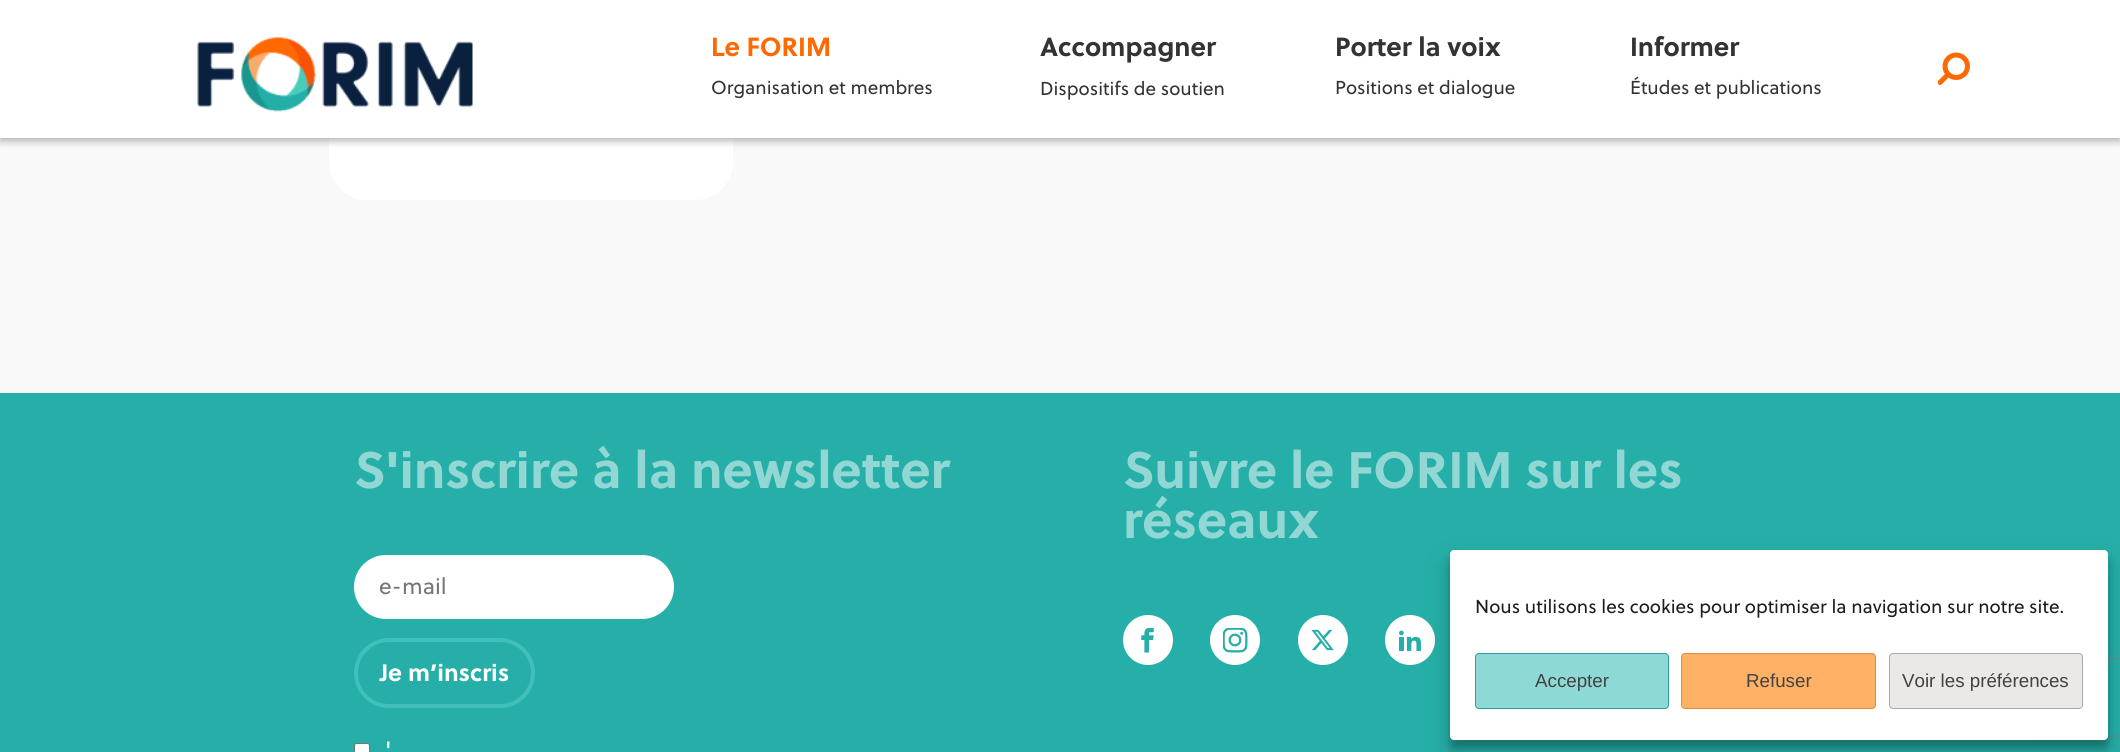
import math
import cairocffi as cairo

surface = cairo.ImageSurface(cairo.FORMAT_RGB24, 2120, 752)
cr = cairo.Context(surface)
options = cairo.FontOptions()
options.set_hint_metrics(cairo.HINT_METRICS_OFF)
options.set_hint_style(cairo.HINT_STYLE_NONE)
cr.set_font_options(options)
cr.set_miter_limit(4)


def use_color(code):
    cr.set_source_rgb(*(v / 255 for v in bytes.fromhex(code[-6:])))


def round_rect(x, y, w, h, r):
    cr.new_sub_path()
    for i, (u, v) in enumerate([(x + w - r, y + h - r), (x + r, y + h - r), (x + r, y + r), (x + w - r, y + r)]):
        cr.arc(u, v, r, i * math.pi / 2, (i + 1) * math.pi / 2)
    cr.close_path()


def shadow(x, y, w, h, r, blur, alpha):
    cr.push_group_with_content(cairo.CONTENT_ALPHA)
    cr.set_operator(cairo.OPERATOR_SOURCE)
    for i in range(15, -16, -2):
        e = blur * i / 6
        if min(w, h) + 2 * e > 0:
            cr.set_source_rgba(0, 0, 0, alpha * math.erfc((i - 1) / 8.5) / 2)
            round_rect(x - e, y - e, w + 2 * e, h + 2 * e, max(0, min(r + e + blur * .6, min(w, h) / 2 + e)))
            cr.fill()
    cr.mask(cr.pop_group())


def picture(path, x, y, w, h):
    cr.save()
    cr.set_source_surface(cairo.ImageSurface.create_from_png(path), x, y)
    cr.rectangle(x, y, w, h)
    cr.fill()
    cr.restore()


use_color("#f9f9f9")
cr.paint()
use_color("#ffffff")
round_rect(329, 41, 404, 159, 38)
cr.fill()
use_color("#000000")
shadow(0, 4, 2120, 137, 0, 4, 0.3)
use_color("#ffffff")
cr.rectangle(0, 0, 2120, 138)
cr.fill()
picture("img1.png", 197, 37, 276, 75)
cr.select_font_face("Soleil", cairo.FONT_SLANT_NORMAL, cairo.FONT_WEIGHT_BOLD)
cr.set_font_size(26.25)
use_color("#ff6900")
cr.move_to(711, 56)
cr.show_text("Le FORIM")
cr.select_font_face("Soleil")
cr.set_font_size(18.75)
use_color("#333333")
cr.move_to(711, 94)
cr.show_text("Organisation et membres")
cr.select_font_face("Soleil", cairo.FONT_SLANT_NORMAL, cairo.FONT_WEIGHT_BOLD)
cr.set_font_size(26.25)
cr.move_to(1040, 56)
cr.show_text("Accompagner")
cr.select_font_face("Soleil")
cr.set_font_size(18.75)
cr.move_to(1040, 95)
cr.show_text("Dispositifs de soutien")
cr.select_font_face("Soleil", cairo.FONT_SLANT_NORMAL, cairo.FONT_WEIGHT_BOLD)
cr.set_font_size(26.25)
cr.move_to(1335, 56)
cr.show_text("Porter la voix")
cr.select_font_face("Soleil")
cr.set_font_size(18.75)
cr.move_to(1335, 94)
cr.show_text("Positions et dialogue")
cr.select_font_face("Soleil", cairo.FONT_SLANT_NORMAL, cairo.FONT_WEIGHT_BOLD)
cr.set_font_size(26.25)
cr.move_to(1630, 56)
cr.show_text("Informer")
cr.select_font_face("Soleil")
cr.set_font_size(18.75)
cr.move_to(1630, 94)
cr.show_text("Études et publications")
picture("img2.png", 1937, 52, 33, 33)
use_color("#25afa8")
cr.rectangle(0, 393, 2120, 359)
cr.fill()
cr.select_font_face("Soleil", cairo.FONT_SLANT_NORMAL, cairo.FONT_WEIGHT_BOLD)
cr.set_font_size(51.25)
use_color("#92d7d4")
cr.move_to(354, 488)
cr.show_text("S'inscrire à la newsletter")
use_color("#ffffff")
round_rect(354, 555, 320, 64, 32)
cr.fill()
cr.select_font_face("Soleil")
cr.set_font_size(22.5)
use_color("#757575")
cr.move_to(379, 594)
cr.show_text("e-mail")
round_rect(356, 640, 177, 66, 33)
use_color("#41bfba")
cr.set_line_width(4)
cr.stroke()
cr.select_font_face("Soleil", cairo.FONT_SLANT_NORMAL, cairo.FONT_WEIGHT_BOLD)
cr.set_font_size(23.75)
use_color("#ffffff")
cr.move_to(380, 681)
cr.show_text("Je m’inscris")
cr.save()
cr.set_fill_rule(cairo.FILL_RULE_EVEN_ODD)
cr.new_path()
cr.move_to(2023, 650)
cr.line_to(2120, 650)
cr.line_to(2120, 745)
cr.line_to(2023, 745)
cr.close_path()
cr.move_to(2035.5, 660)
cr.line_to(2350.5, 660)
cr.curve_to(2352, 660, 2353, 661, 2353, 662.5)
cr.line_to(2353, 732.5)
cr.curve_to(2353, 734, 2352, 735, 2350.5, 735)
cr.line_to(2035.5, 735)
cr.curve_to(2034, 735, 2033, 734, 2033, 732.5)
cr.line_to(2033, 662.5)
cr.curve_to(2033, 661, 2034, 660, 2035.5, 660)
cr.close_path()
cr.clip()
use_color("#808080")
shadow(2033, 660, 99, 75, 2.5, 3, 1)
cr.restore()
round_rect(354.5, 743.5, 15, 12, 2)
cr.fill_preserve()
use_color("#767676")
cr.set_line_width(1)
cr.stroke()
cr.select_font_face("Soleil")
cr.set_font_size(25)
use_color("#ffffff")
cr.move_to(385, 759)
cr.show_text("'")
cr.select_font_face("Soleil", cairo.FONT_SLANT_NORMAL, cairo.FONT_WEIGHT_BOLD)
cr.set_font_size(51.25)
use_color("#92d7d4")
cr.move_to(1123, 488)
cr.show_text("Suivre le FORIM sur les")
cr.move_to(1123, 538)
cr.show_text("réseaux")
use_color("#ffffff")
cr.new_path()
cr.arc(1148, 640, 25, 0, 2 * math.pi)
cr.fill()
picture("img3.png", 1141, 628, 13, 25)
cr.arc(1235, 640, 25, 0, 2 * math.pi)
cr.fill()
picture("img4.png", 1223, 628, 25, 25)
cr.arc(1323, 640, 25, 0, 2 * math.pi)
cr.fill()
picture("img5.png", 1311, 629, 23, 22)
cr.arc(1410, 640, 25, 0, 2 * math.pi)
cr.fill()
picture("img6.png", 1399, 630, 22, 21)
use_color("#000000")
shadow(1450, 558, 658, 190, 4, 4, 0.23)
shadow(1450, 563, 658, 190, 4, 12.5, 0.19)
use_color("#ffffff")
round_rect(1450, 550, 658, 190, 4)
cr.fill()
cr.select_font_face("Soleil")
cr.set_font_size(18.75)
use_color("#191e23")
cr.move_to(1475, 613)
cr.show_text("Nous utilisons les cookies pour optimiser la navigation sur notre site.")
use_color("#8cd9d5")
round_rect(1475.5, 653.5, 193, 55, 3.5)
cr.fill_preserve()
use_color("#25a29d")
cr.stroke()
cr.select_font_face("Liberation Sans")
use_color("#444141")
cr.move_to(1535, 687)
cr.show_text("Accepter")
use_color("#ffb266")
round_rect(1681.5, 653.5, 194, 55, 3.5)
cr.fill_preserve()
use_color("#de8b4a")
cr.stroke()
use_color("#444141")
cr.move_to(1746, 687)
cr.show_text("Refuser")
use_color("#ece8e8")
round_rect(1889.5, 653.5, 193, 55, 3.5)
cr.fill_preserve()
use_color("#aaaaaa")
cr.stroke()
use_color("#444141")
cr.move_to(1902, 687)
cr.show_text("Voir les préférences")
surface.write_to_png("result.png")
